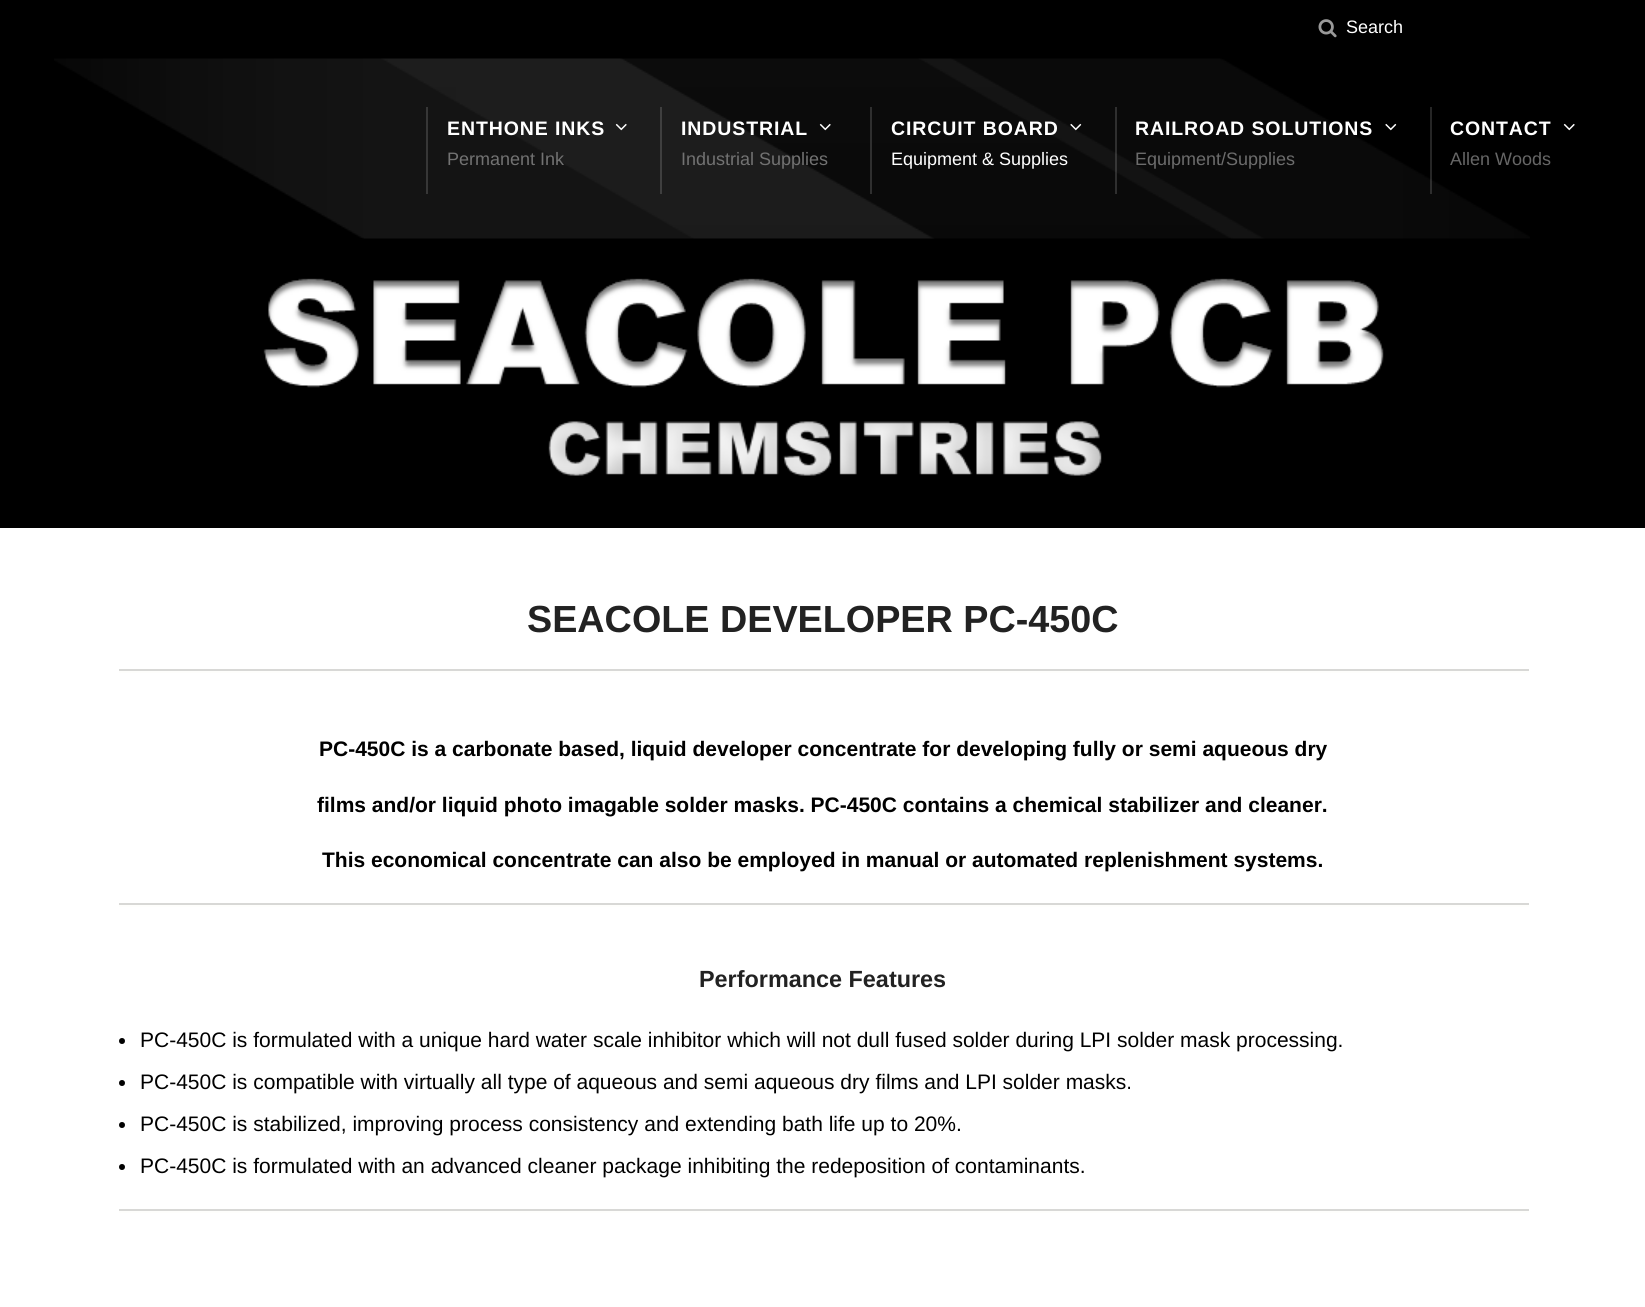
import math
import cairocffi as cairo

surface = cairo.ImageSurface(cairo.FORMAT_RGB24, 1645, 1307)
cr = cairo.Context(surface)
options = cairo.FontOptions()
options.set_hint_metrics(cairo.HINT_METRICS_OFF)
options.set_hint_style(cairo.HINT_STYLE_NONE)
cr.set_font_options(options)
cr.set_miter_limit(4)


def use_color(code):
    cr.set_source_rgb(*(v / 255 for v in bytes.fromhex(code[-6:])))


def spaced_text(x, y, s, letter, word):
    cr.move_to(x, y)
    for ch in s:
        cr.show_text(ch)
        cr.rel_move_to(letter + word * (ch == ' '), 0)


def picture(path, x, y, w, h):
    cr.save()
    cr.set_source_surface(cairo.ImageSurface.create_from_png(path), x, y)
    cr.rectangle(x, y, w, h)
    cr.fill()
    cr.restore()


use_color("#000000")
cr.paint()
picture("img1.png", 1318, 19, 19, 19)
cr.select_font_face("Liberation Sans")
cr.set_font_size(18)
use_color("#ffffff")
cr.move_to(1346, 33)
cr.show_text("Search")
picture("img2.png", 54, 58, 1476, 181)
use_color("#373737")
cr.rectangle(426, 107, 2, 87)
cr.fill()
cr.select_font_face("Liberation Sans", cairo.FONT_SLANT_NORMAL, cairo.FONT_WEIGHT_BOLD)
cr.set_font_size(19.5)
use_color("#ffffff")
spaced_text(447, 135, "ENTHONE INKS", 0.9, 0)
picture("img3.png", 615, 123, 12, 8)
cr.select_font_face("Liberation Sans")
cr.set_font_size(18)
use_color("#727272")
cr.move_to(447, 165)
cr.show_text("Permanent Ink")
use_color("#3f3f3f")
cr.rectangle(660, 107, 2, 87)
cr.fill()
cr.select_font_face("Liberation Sans", cairo.FONT_SLANT_NORMAL, cairo.FONT_WEIGHT_BOLD)
cr.set_font_size(19.5)
use_color("#ffffff")
spaced_text(681, 135, "INDUSTRIAL", 0.9, 0)
picture("img4.png", 819, 123, 12, 8)
cr.select_font_face("Liberation Sans")
cr.set_font_size(18)
use_color("#727272")
cr.move_to(681, 165)
cr.show_text("Industrial Supplies")
use_color("#2f2f2f")
cr.rectangle(870, 107, 2, 87)
cr.fill()
cr.select_font_face("Liberation Sans", cairo.FONT_SLANT_NORMAL, cairo.FONT_WEIGHT_BOLD)
cr.set_font_size(19.5)
use_color("#ffffff")
spaced_text(891, 135, "CIRCUIT BOARD", 0.9, 0)
picture("img5.png", 1070, 123, 12, 8)
cr.select_font_face("Liberation Sans")
cr.set_font_size(18)
cr.move_to(891, 165)
cr.show_text("Equipment & Supplies")
cr.set_source_rgba(1, 1, 1, 0.15)
cr.rectangle(1115, 107, 2, 87)
cr.fill()
cr.select_font_face("Liberation Sans", cairo.FONT_SLANT_NORMAL, cairo.FONT_WEIGHT_BOLD)
cr.set_font_size(19.5)
use_color("#ffffff")
spaced_text(1135, 135, "RAILROAD SOLUTIONS", 0.9, 0)
picture("img6.png", 1385, 123, 12, 8)
cr.select_font_face("Liberation Sans")
cr.set_font_size(18)
use_color("#6c6c6c")
cr.move_to(1135, 165)
cr.show_text("Equipment/Supplies")
cr.set_source_rgba(1, 1, 1, 0.15)
cr.rectangle(1430, 107, 2, 87)
cr.fill()
cr.select_font_face("Liberation Sans", cairo.FONT_SLANT_NORMAL, cairo.FONT_WEIGHT_BOLD)
cr.set_font_size(19.5)
use_color("#ffffff")
spaced_text(1450, 135, "CONTACT", 0.9, 0)
picture("img7.png", 1563, 123, 12, 8)
cr.select_font_face("Liberation Sans")
cr.set_font_size(18)
use_color("#666666")
cr.move_to(1450, 165)
cr.show_text("Allen Woods")
use_color("#ffffff")
cr.rectangle(0, 528, 1645, 779)
cr.fill()
picture("img8.png", 263, 278, 1121, 198)
cr.select_font_face("Liberation Sans", cairo.FONT_SLANT_NORMAL, cairo.FONT_WEIGHT_BOLD)
cr.set_font_size(37.75)
use_color("#222222")
cr.move_to(527, 632)
cr.show_text("SEACOLE DEVELOPER PC-450C")
use_color("#fefefc")
cr.rectangle(119, 671, 1410, 2)
cr.fill()
use_color("#d8d8d6")
cr.rectangle(119, 669, 1410, 2)
cr.fill()
cr.set_font_size(21)
use_color("#000000")
cr.move_to(319, 756)
cr.show_text("PC-450C is a carbonate based, liquid developer concentrate for developing fully or semi aqueous dry")
cr.move_to(317, 812)
cr.show_text("films and/or liquid photo imagable solder masks. PC-450C contains a chemical stabilizer and cleaner.")
cr.move_to(322, 867)
cr.show_text("This economical concentrate can also be employed in manual or automated replenishment systems.")
use_color("#fefefc")
cr.rectangle(119, 905, 1410, 2)
cr.fill()
use_color("#d8d8d6")
cr.rectangle(119, 903, 1410, 2)
cr.fill()
cr.set_font_size(23.4)
use_color("#222222")
cr.move_to(699, 987)
cr.show_text("Performance Features")
use_color("#000000")
cr.new_path()
cr.arc(122, 1041, 3, 0, 2 * math.pi)
cr.fill()
cr.select_font_face("Liberation Sans")
cr.set_font_size(21)
cr.move_to(140, 1047)
cr.show_text("PC-450C is formulated with a unique hard water scale inhibitor which will not dull fused solder during LPI solder mask processing.")
cr.new_path()
cr.arc(122, 1083, 3, 0, 2 * math.pi)
cr.fill()
cr.move_to(140, 1089)
cr.show_text("PC-450C is compatible with virtually all type of aqueous and semi aqueous dry films and LPI solder masks.")
cr.new_path()
cr.arc(122, 1125, 3, 0, 2 * math.pi)
cr.fill()
cr.move_to(140, 1131)
cr.show_text("PC-450C is stabilized, improving process consistency and extending bath life up to 20%.")
cr.new_path()
cr.arc(122, 1167, 3, 0, 2 * math.pi)
cr.fill()
cr.move_to(140, 1173)
cr.show_text("PC-450C is formulated with an advanced cleaner package inhibiting the redeposition of contaminants.")
use_color("#fefefc")
cr.rectangle(119, 1211, 1410, 2)
cr.fill()
use_color("#d8d8d6")
cr.rectangle(119, 1209, 1410, 2)
cr.fill()
surface.write_to_png("result.png")
